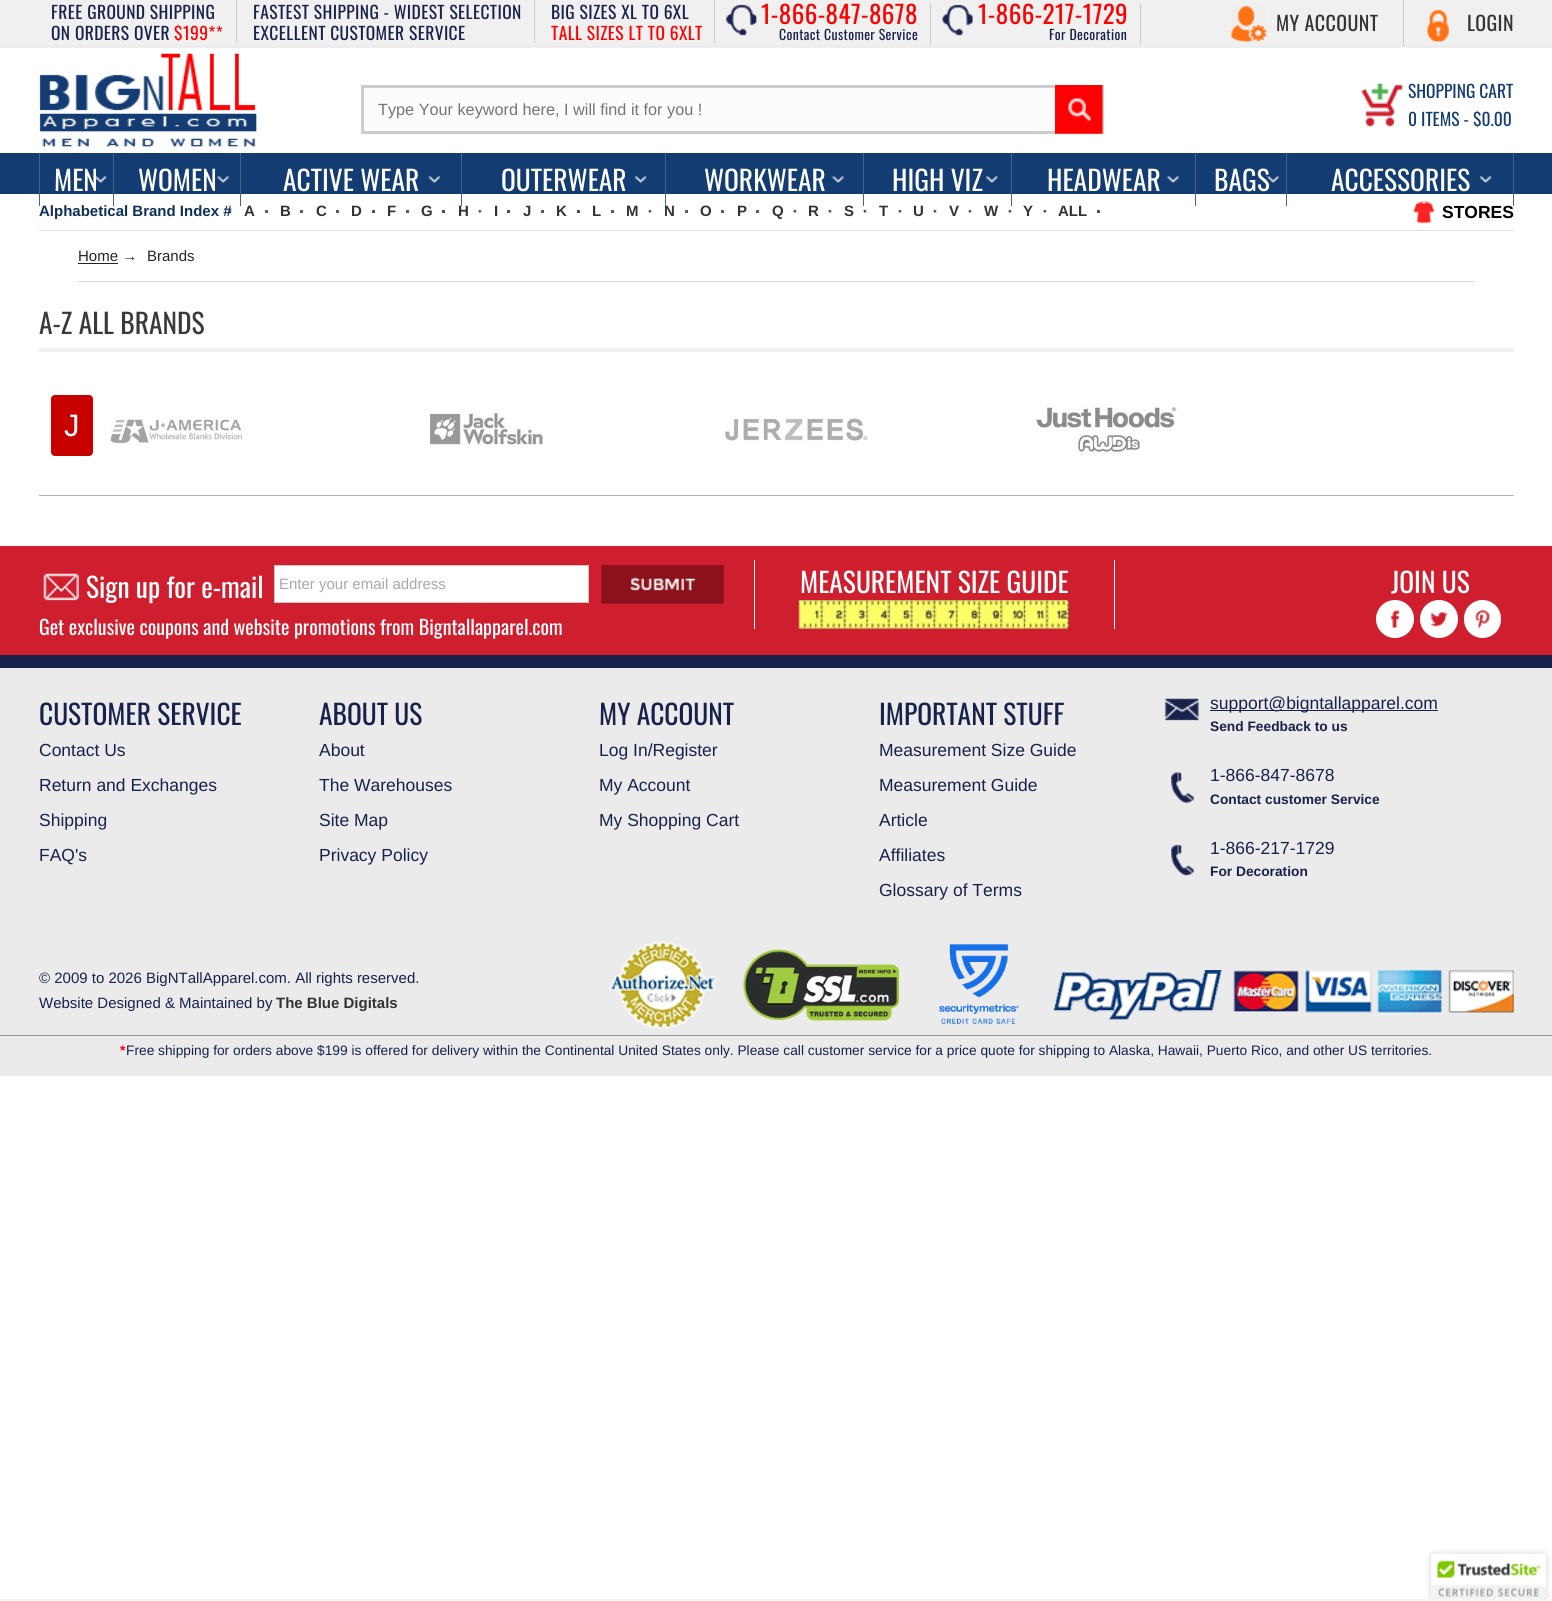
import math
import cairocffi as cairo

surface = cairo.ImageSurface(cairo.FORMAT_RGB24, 1552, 1601)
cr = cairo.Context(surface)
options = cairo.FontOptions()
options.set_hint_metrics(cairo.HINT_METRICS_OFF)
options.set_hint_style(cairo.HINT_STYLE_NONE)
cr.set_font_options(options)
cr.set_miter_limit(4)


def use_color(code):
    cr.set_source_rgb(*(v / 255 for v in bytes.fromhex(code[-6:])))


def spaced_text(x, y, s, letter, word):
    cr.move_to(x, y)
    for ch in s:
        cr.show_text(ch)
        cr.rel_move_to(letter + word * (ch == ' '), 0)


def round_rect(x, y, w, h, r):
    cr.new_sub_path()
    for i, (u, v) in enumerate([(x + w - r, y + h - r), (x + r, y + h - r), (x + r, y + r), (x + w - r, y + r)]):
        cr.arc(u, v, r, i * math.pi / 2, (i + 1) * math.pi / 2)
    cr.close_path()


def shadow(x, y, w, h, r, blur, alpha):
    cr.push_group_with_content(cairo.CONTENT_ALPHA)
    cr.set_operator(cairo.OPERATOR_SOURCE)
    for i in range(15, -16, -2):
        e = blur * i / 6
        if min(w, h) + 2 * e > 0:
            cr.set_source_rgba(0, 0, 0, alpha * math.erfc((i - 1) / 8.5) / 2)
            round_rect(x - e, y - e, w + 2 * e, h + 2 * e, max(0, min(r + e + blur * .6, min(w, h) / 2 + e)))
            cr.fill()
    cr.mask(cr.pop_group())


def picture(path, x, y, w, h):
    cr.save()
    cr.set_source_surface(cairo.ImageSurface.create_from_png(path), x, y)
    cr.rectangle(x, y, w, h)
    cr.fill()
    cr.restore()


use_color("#ffffff")
cr.paint()
use_color("#f0f0f0")
cr.rectangle(0, 0, 1552, 48)
cr.fill()
use_color("#eaeaea")
cr.rectangle(0, 46, 1552, 1)
cr.fill()
use_color("#cccccc")
cr.rectangle(236, 0, 1, 43)
cr.fill()
cr.select_font_face("Oswald")
cr.set_font_size(17.5)
use_color("#18204c")
spaced_text(51, 19, "FREE GROUND SHIPPING", 0.4, 0)
spaced_text(51, 40, "ON ORDERS OVER", 0.4, 0)
use_color("#ff0000")
spaced_text(174, 40, "$199**", 0.4, 0)
use_color("#cccccc")
cr.rectangle(534, 0, 1, 43)
cr.fill()
use_color("#18204c")
spaced_text(253, 19, "FASTEST SHIPPING - WIDEST SELECTION", 0.4, 0)
spaced_text(253, 40, "EXCELLENT CUSTOMER SERVICE", 0.4, 0)
use_color("#cccccc")
cr.rectangle(714, 0, 1, 43)
cr.fill()
use_color("#18204c")
spaced_text(551, 19, "BIG SIZES XL TO 6XL", 0.4, 0)
use_color("#ff0000")
spaced_text(551, 40, "TALL SIZES LT TO 6XLT", 0.4, 0)
picture("img1.png", 726, 4, 31, 32)
use_color("#cccccc")
cr.rectangle(930, 3, 1, 42)
cr.fill()
cr.set_font_size(25)
use_color("#ff0000")
spaced_text(761, 24, "1-866-847-8678", 0.4, 0)
cr.set_font_size(13.75)
use_color("#18204c")
spaced_text(779, 40, "Contact Customer Service", 0.4, 0)
picture("img2.png", 942, 4, 31, 32)
use_color("#cccccc")
cr.rectangle(1140, 3, 1, 42)
cr.fill()
cr.set_font_size(25)
use_color("#ff0000")
spaced_text(978, 24, "1-866-217-1729", 0.4, 0)
cr.set_font_size(13.75)
use_color("#18204c")
spaced_text(1049, 40, "For Decoration", 0.4, 0)
picture("img3.png", 1231, 6, 36, 36)
use_color("#cccccc")
cr.rectangle(1403, 0, 1, 46)
cr.fill()
cr.set_font_size(20)
use_color("#333333")
spaced_text(1276, 31, "MY ACCOUNT", 0.4, 0)
picture("img4.png", 1427, 9, 22, 33)
spaced_text(1467, 31, "LOGIN", 0.4, 0)
picture("img5.png", 39, 53, 218, 94)
use_color("#fcfcfc")
cr.rectangle(364, 88, 691, 43)
cr.fill()
cr.rectangle(362.5, 86.5, 740, 46)
use_color("#cccccc")
cr.set_line_width(3)
cr.stroke()
cr.select_font_face("Liberation Sans")
cr.set_font_size(16.25)
use_color("#757575")
cr.move_to(378, 115)
cr.show_text("Type Your keyword here, I will find it for you !")
picture("img6.png", 1055, 85, 48, 49)
picture("img7.png", 1361, 83, 42, 44)
cr.select_font_face("Oswald")
cr.set_font_size(17.5)
use_color("#133c72")
cr.move_to(1408, 98)
cr.show_text("SHOPPING CART")
cr.move_to(1408, 126)
cr.show_text("0 ITEMS - $0.00")
cr.rectangle(0, 153, 1552, 41)
cr.fill()
picture("img13.png", 228, 210, 4, 3)
cr.select_font_face("Liberation Sans", cairo.FONT_SLANT_NORMAL, cairo.FONT_WEIGHT_BOLD)
cr.set_font_size(15)
use_color("#0e2f58")
cr.move_to(39, 216)
cr.show_text("Alphabetical Brand Index #")
use_color("#42638e")
cr.rectangle(113, 153, 1, 53)
cr.fill()
cr.rectangle(39, 153, 1, 53)
cr.fill()
picture("img8.png", 95, 176, 12, 7)
cr.select_font_face("Oswald")
cr.set_font_size(27.5)
use_color("#ffffff")
cr.move_to(54, 191)
cr.show_text("MEN")
use_color("#42638e")
cr.rectangle(240, 153, 1, 53)
cr.fill()
picture("img9.png", 217, 176, 12, 7)
use_color("#ffffff")
cr.move_to(138, 191)
cr.show_text("WOMEN")
cr.select_font_face("Liberation Sans", cairo.FONT_SLANT_NORMAL, cairo.FONT_WEIGHT_BOLD)
cr.set_font_size(15)
use_color("#333333")
cr.move_to(458, 216)
cr.show_text("H")
use_color("#42638e")
cr.rectangle(461, 153, 1, 53)
cr.fill()
picture("img10.png", 428, 176, 12, 7)
cr.select_font_face("Oswald")
cr.set_font_size(27.5)
use_color("#ffffff")
cr.move_to(283, 191)
cr.show_text("ACTIVE WEAR")
cr.select_font_face("Liberation Sans", cairo.FONT_SLANT_NORMAL, cairo.FONT_WEIGHT_BOLD)
cr.set_font_size(15)
use_color("#333333")
cr.move_to(664, 216)
cr.show_text("N")
use_color("#42638e")
cr.rectangle(665, 153, 1, 53)
cr.fill()
picture("img8.png", 635, 176, 12, 7)
cr.select_font_face("Oswald")
cr.set_font_size(27.5)
use_color("#ffffff")
cr.move_to(501, 191)
cr.show_text("OUTERWEAR")
use_color("#42638e")
cr.rectangle(863, 153, 1, 53)
cr.fill()
picture("img11.png", 832, 176, 12, 7)
use_color("#ffffff")
cr.move_to(704, 191)
cr.show_text("WORKWEAR")
use_color("#42638e")
cr.rectangle(1011, 153, 1, 53)
cr.fill()
picture("img12.png", 986, 176, 12, 7)
use_color("#ffffff")
cr.move_to(892, 191)
cr.show_text("HIGH VIZ")
use_color("#42638e")
cr.rectangle(1195, 153, 1, 53)
cr.fill()
picture("img11.png", 1167, 176, 12, 7)
use_color("#ffffff")
cr.move_to(1047, 191)
cr.show_text("HEADWEAR")
use_color("#42638e")
cr.rectangle(1286, 153, 1, 53)
cr.fill()
picture("img9.png", 1267, 176, 12, 7)
use_color("#ffffff")
cr.move_to(1214, 191)
cr.show_text("BAGS")
use_color("#42638e")
cr.rectangle(1513, 153, 1, 53)
cr.fill()
picture("img8.png", 1480, 176, 12, 7)
use_color("#ffffff")
cr.move_to(1331, 191)
cr.show_text("ACCESSORIES")
use_color("#e1e1e1")
cr.rectangle(39, 230, 1475, 1)
cr.fill()
use_color("#525f73")
cr.rectangle(265, 210, 3, 3)
cr.fill()
cr.select_font_face("Liberation Sans", cairo.FONT_SLANT_NORMAL, cairo.FONT_WEIGHT_BOLD)
cr.set_font_size(15)
use_color("#333333")
cr.move_to(244, 216)
cr.show_text("A")
use_color("#525f73")
cr.rectangle(300, 210, 3, 3)
cr.fill()
use_color("#333333")
cr.move_to(280, 216)
cr.show_text("B")
use_color("#4d596c")
cr.rectangle(336, 210, 3, 3)
cr.fill()
use_color("#333333")
cr.move_to(316, 216)
cr.show_text("C")
use_color("#465162")
cr.rectangle(372, 210, 3, 3)
cr.fill()
use_color("#333333")
cr.move_to(351, 216)
cr.show_text("D")
use_color("#4d596c")
cr.rectangle(406, 210, 3, 3)
cr.fill()
use_color("#333333")
cr.move_to(387, 216)
cr.show_text("F")
use_color("#465162")
cr.rectangle(442, 210, 3, 3)
cr.fill()
use_color("#333333")
cr.move_to(421, 216)
cr.show_text("G")
picture("img13.png", 478, 210, 4, 3)
use_color("#465162")
cr.rectangle(507, 210, 3, 3)
cr.fill()
use_color("#333333")
cr.move_to(494, 216)
cr.show_text("I")
use_color("#4d596c")
cr.rectangle(541, 210, 3, 3)
cr.fill()
use_color("#333333")
cr.move_to(523, 216)
cr.show_text("J")
use_color("#465162")
cr.rectangle(577, 210, 3, 3)
cr.fill()
use_color("#333333")
cr.move_to(556, 216)
cr.show_text("K")
use_color("#4d596c")
cr.rectangle(611, 210, 3, 3)
cr.fill()
use_color("#333333")
cr.move_to(592, 216)
cr.show_text("L")
picture("img13.png", 648, 210, 4, 3)
cr.move_to(626, 216)
cr.show_text("M")
use_color("#525f73")
cr.rectangle(685, 210, 3, 3)
cr.fill()
use_color("#4d596c")
cr.rectangle(721, 210, 3, 3)
cr.fill()
use_color("#333333")
cr.move_to(700, 216)
cr.show_text("O")
use_color("#4d596c")
cr.rectangle(756, 210, 3, 3)
cr.fill()
use_color("#333333")
cr.move_to(737, 216)
cr.show_text("P")
picture("img13.png", 793, 210, 4, 3)
cr.move_to(772, 216)
cr.show_text("Q")
picture("img13.png", 828, 210, 4, 3)
cr.move_to(808, 216)
cr.show_text("R")
picture("img13.png", 863, 210, 4, 3)
cr.move_to(844, 216)
cr.show_text("S")
picture("img13.png", 898, 210, 4, 3)
cr.move_to(879, 216)
cr.show_text("T")
picture("img13.png", 933, 210, 4, 3)
cr.move_to(913, 216)
cr.show_text("U")
picture("img13.png", 968, 210, 4, 3)
cr.move_to(949, 216)
cr.show_text("V")
picture("img13.png", 1008, 210, 4, 3)
cr.move_to(984, 216)
cr.show_text("W")
picture("img13.png", 1043, 210, 4, 3)
cr.move_to(1023, 216)
cr.show_text("Y")
use_color("#465162")
cr.rectangle(1097, 210, 3, 3)
cr.fill()
use_color("#333333")
cr.move_to(1058, 216)
cr.show_text("ALL")
picture("img14.png", 1413, 201, 22, 23)
cr.set_font_size(17.5)
use_color("#000000")
cr.move_to(1442, 218)
cr.show_text("STORES")
use_color("#dddddd")
cr.rectangle(78, 281, 1397, 1)
cr.fill()
cr.select_font_face("Liberation Sans")
cr.set_font_size(15)
use_color("#242424")
cr.move_to(78, 261)
cr.show_text("Home →")
cr.rectangle(78, 263, 40, 1)
cr.fill()
cr.move_to(147, 261)
cr.show_text("Brands")
use_color("#f0f0f0")
cr.rectangle(39, 348, 1475, 4)
cr.fill()
cr.select_font_face("Oswald")
cr.set_font_size(27.5)
use_color("#393939")
cr.move_to(39, 334)
cr.show_text("A-Z ALL BRANDS")
use_color("#b2b2b2")
cr.rectangle(39, 495, 1475, 1)
cr.fill()
use_color("#c70000")
round_rect(51, 395, 42, 61, 4)
cr.fill()
cr.select_font_face("Liberation Sans")
cr.set_font_size(31)
use_color("#ffffff")
cr.move_to(64, 436)
cr.show_text("J")
picture("img15.png", 110, 415, 135, 30)
picture("img16.png", 430, 410, 114, 35)
picture("img17.png", 725, 415, 143, 29)
picture("img18.png", 1035, 405, 142, 50)
use_color("#ebebeb")
cr.rectangle(0, 668, 1552, 408)
cr.fill()
use_color("#cf1f2e")
cr.rectangle(0, 546, 1552, 109)
cr.fill()
use_color("#18214c")
cr.rectangle(0, 655, 1552, 13)
cr.fill()
picture("img19.png", 43, 573, 36, 28)
cr.select_font_face("Oswald")
cr.set_font_size(27.5)
use_color("#ffffff")
cr.move_to(86, 598)
cr.show_text("Sign up for e-mail")
cr.rectangle(274.5, 565.5, 314, 37)
cr.fill_preserve()
use_color("#cac3bf")
cr.set_line_width(1)
cr.stroke()
cr.select_font_face("Liberation Sans")
cr.set_font_size(15)
use_color("#a8a8a8")
cr.move_to(279, 589)
cr.show_text("Enter your email address")
picture("img20.png", 601, 565, 123, 39)
cr.select_font_face("Oswald")
cr.set_font_size(20)
use_color("#ffffff")
cr.move_to(39, 635)
cr.show_text("Get exclusive coupons and website promotions from Bigntallapparel.com")
cr.rectangle(1114, 560, 1, 69)
cr.fill()
cr.rectangle(754, 560, 1, 69)
cr.fill()
cr.set_font_size(27.5)
cr.move_to(800, 593)
cr.show_text("MEASUREMENT SIZE GUIDE")
picture("img21.png", 798, 600, 271, 29)
cr.move_to(1391, 593)
cr.show_text("JOIN US")
cr.new_path()
cr.arc(1395, 619, 19, 0, 2 * math.pi)
cr.fill()
picture("img22.png", 1391, 609, 9, 19)
cr.arc(1439, 619, 19, 0, 2 * math.pi)
cr.fill()
picture("img23.png", 1430, 611, 18, 16)
round_rect(1464, 600, 37, 38, 18.5)
cr.fill()
picture("img24.png", 1475, 609, 16, 20)
use_color("#18204c")
cr.move_to(39, 725)
cr.show_text("CUSTOMER SERVICE")
cr.select_font_face("Liberation Sans")
cr.set_font_size(17.5)
cr.move_to(39, 756)
cr.show_text("Contact Us")
cr.move_to(39, 791)
cr.show_text("Return and Exchanges")
cr.move_to(39, 826)
cr.show_text("Shipping")
cr.move_to(39, 861)
cr.show_text("FAQ's")
cr.select_font_face("Oswald")
cr.set_font_size(27.5)
cr.move_to(319, 725)
cr.show_text("ABOUT US")
cr.select_font_face("Liberation Sans")
cr.set_font_size(17.5)
cr.move_to(319, 756)
cr.show_text("About")
cr.move_to(319, 791)
cr.show_text("The Warehouses")
cr.move_to(319, 826)
cr.show_text("Site Map")
cr.move_to(319, 861)
cr.show_text("Privacy Policy")
cr.select_font_face("Oswald")
cr.set_font_size(27.5)
cr.move_to(599, 725)
cr.show_text("MY ACCOUNT")
cr.select_font_face("Liberation Sans")
cr.set_font_size(17.5)
cr.move_to(599, 756)
cr.show_text("Log In/Register")
cr.move_to(599, 791)
cr.show_text("My Account")
cr.move_to(599, 826)
cr.show_text("My Shopping Cart")
cr.select_font_face("Oswald")
cr.set_font_size(27.5)
cr.move_to(879, 725)
cr.show_text("IMPORTANT STUFF")
cr.select_font_face("Liberation Sans")
cr.set_font_size(17.5)
cr.move_to(879, 756)
cr.show_text("Measurement Size Guide")
cr.move_to(879, 791)
cr.show_text("Measurement Guide")
cr.move_to(879, 826)
cr.show_text("Article")
cr.move_to(879, 861)
cr.show_text("Affiliates")
cr.move_to(879, 896)
cr.show_text("Glossary of Terms")
picture("img25.png", 1164, 698, 35, 23)
use_color("#1d1e4a")
cr.rectangle(1210, 710, 228, 1)
cr.fill()
use_color("#18204c")
cr.move_to(1210, 709)
cr.show_text("support@bigntallapparel.com")
cr.select_font_face("Liberation Sans", cairo.FONT_SLANT_NORMAL, cairo.FONT_WEIGHT_BOLD)
cr.set_font_size(13.75)
cr.move_to(1210, 731)
cr.show_text("Send Feedback to us")
picture("img26.png", 1171, 772, 23, 31)
cr.select_font_face("Liberation Sans")
cr.set_font_size(17.5)
cr.move_to(1210, 781)
cr.show_text("1-866-847-8678")
cr.select_font_face("Liberation Sans", cairo.FONT_SLANT_NORMAL, cairo.FONT_WEIGHT_BOLD)
cr.set_font_size(13.75)
cr.move_to(1210, 804)
cr.show_text("Contact customer Service")
picture("img27.png", 1171, 844, 23, 32)
cr.select_font_face("Liberation Sans")
cr.set_font_size(17.5)
cr.move_to(1210, 854)
cr.show_text("1-866-217-1729")
cr.select_font_face("Liberation Sans", cairo.FONT_SLANT_NORMAL, cairo.FONT_WEIGHT_BOLD)
cr.set_font_size(13.75)
cr.move_to(1210, 876)
cr.show_text("For Decoration")
cr.select_font_face("Liberation Sans")
cr.set_font_size(15)
cr.move_to(39, 983)
cr.show_text("© 2009 to 2026 BigNTallApparel.com. All rights reserved.")
cr.move_to(39, 1008)
cr.show_text("Website Designed & Maintained by")
cr.select_font_face("Liberation Sans", cairo.FONT_SLANT_NORMAL, cairo.FONT_WEIGHT_BOLD)
use_color("#333333")
cr.move_to(276, 1008)
cr.show_text("The Blue Digitals")
picture("img28.png", 609, 941, 107, 88)
picture("img29.png", 743, 949, 157, 72)
picture("img30.png", 939, 944, 80, 80)
picture("img31.png", 1053, 970, 461, 50)
use_color("#959595")
cr.rectangle(0, 1035, 1552, 1)
cr.fill()
cr.set_font_size(13.75)
use_color("#ff0000")
cr.move_to(120, 1055)
cr.show_text("*")
cr.select_font_face("Liberation Sans")
use_color("#18204c")
cr.move_to(126, 1055)
cr.show_text("Free shipping for orders above $199 is offered for delivery within the Continental United States only. Please call customer service for a price quote for shipping to Alaska, Hawaii, Puerto Rico, and other US territories.")
use_color("#000000")
shadow(1431, 1554, 115, 47, 2.5, 3, 0.2)
use_color("#ffffff")
cr.new_path()
cr.move_to(1433.5, 1554)
cr.line_to(1543.5, 1554)
cr.curve_to(1545, 1554, 1546, 1555, 1546, 1556.5)
cr.line_to(1546, 1601)
cr.line_to(1431, 1601)
cr.line_to(1431, 1556.5)
cr.curve_to(1431, 1555, 1432, 1554, 1433.5, 1554)
cr.close_path()
cr.fill()
picture("img32.png", 1431, 1553, 116, 46)
use_color("#f5f5f5")
cr.rectangle(0, 1599, 1552, 2)
cr.fill()
surface.write_to_png("result.png")
